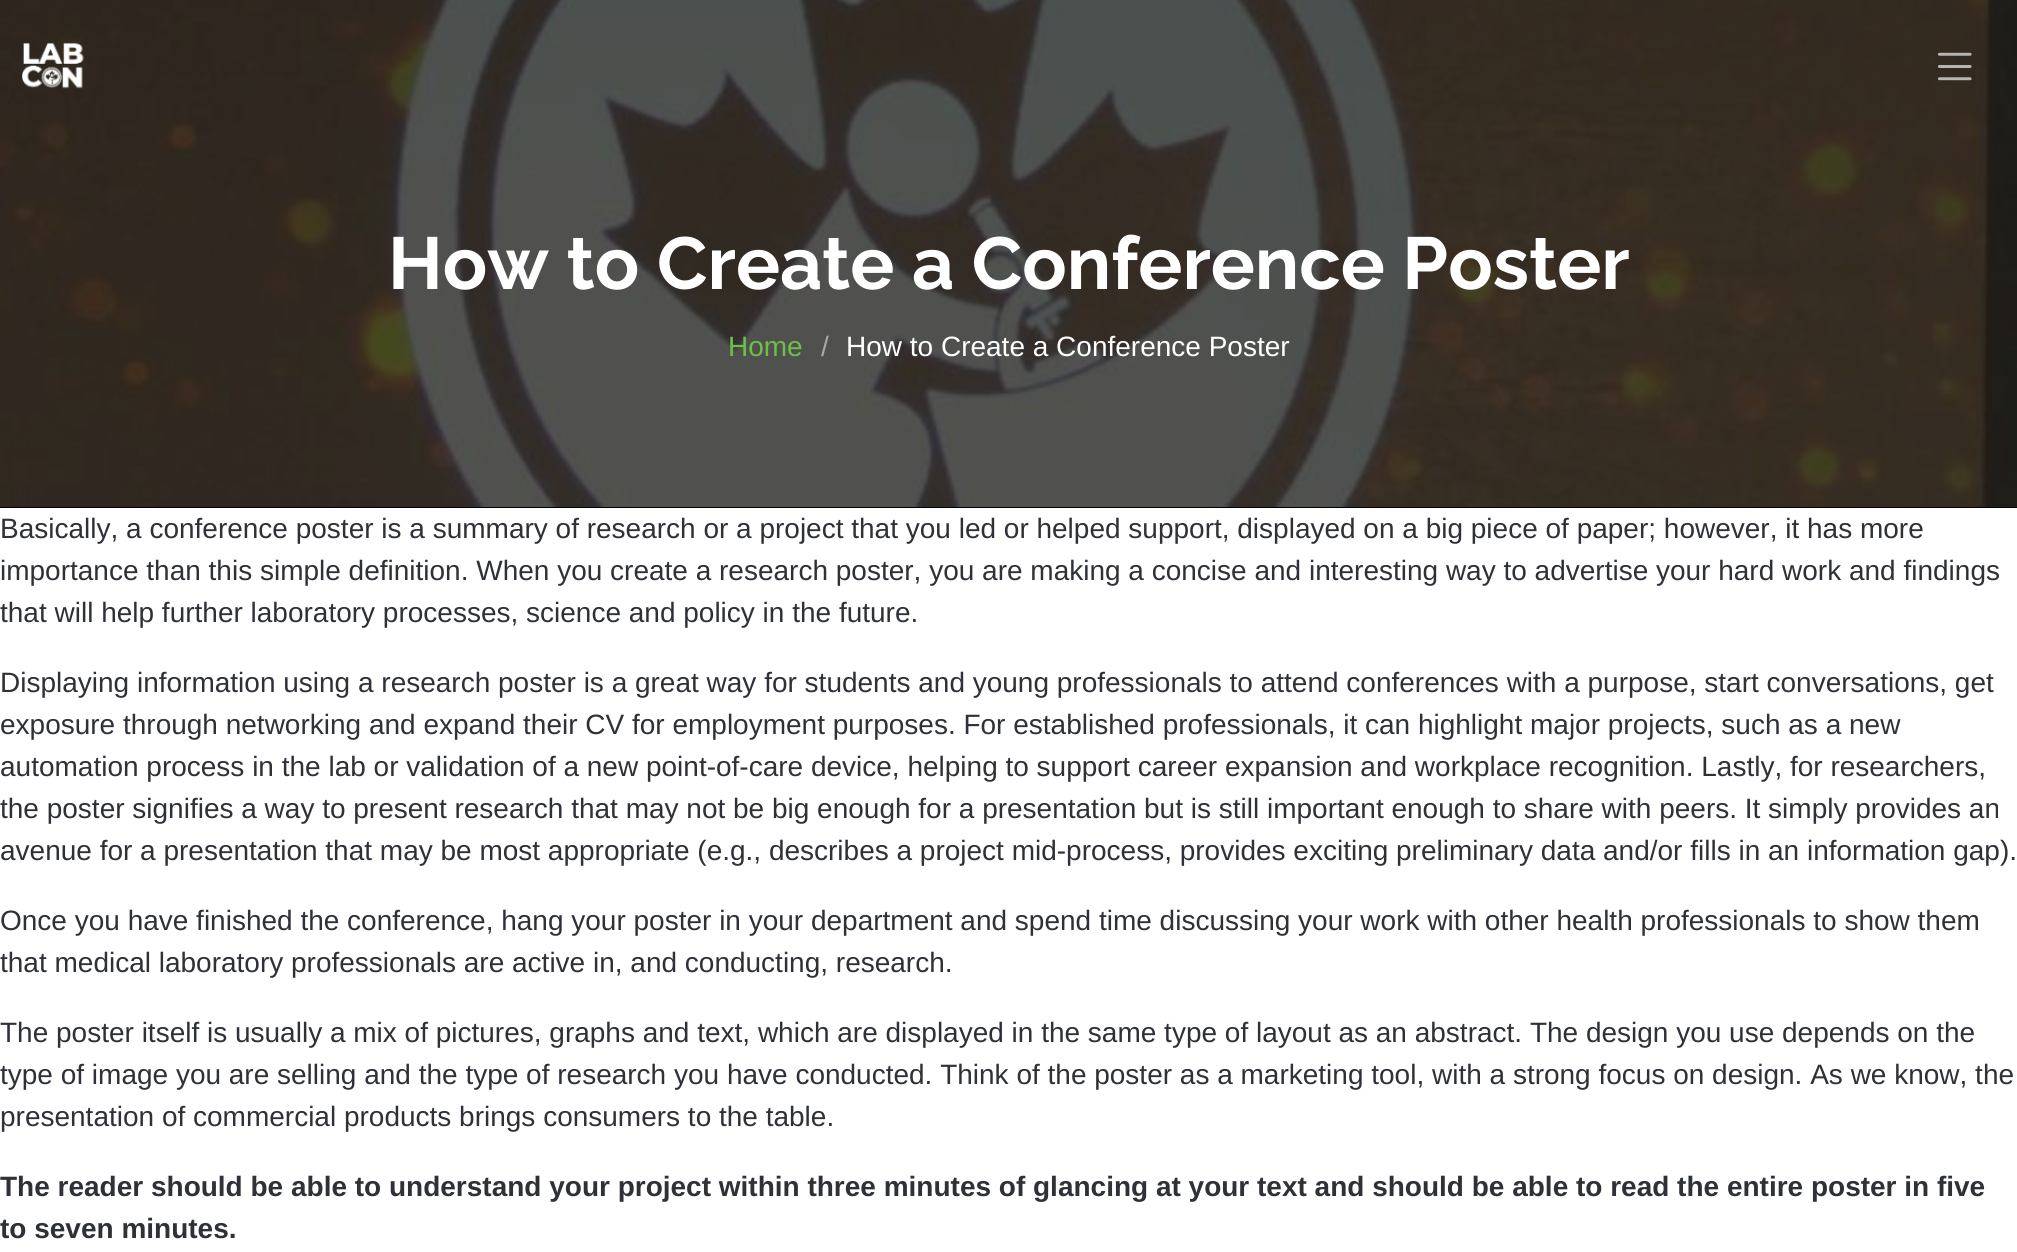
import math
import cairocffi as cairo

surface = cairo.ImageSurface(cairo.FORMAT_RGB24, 2017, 1252)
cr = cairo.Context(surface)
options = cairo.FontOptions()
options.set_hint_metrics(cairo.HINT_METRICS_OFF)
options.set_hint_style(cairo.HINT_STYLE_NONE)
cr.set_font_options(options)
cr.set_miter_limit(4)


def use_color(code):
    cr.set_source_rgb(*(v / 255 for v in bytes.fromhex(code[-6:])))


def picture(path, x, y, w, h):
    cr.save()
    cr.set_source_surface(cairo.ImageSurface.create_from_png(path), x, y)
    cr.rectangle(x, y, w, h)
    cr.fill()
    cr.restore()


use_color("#ffffff")
cr.paint()
picture("img3.png", 0, 0, 2017, 507)
picture("img1.png", 22, 42, 62, 47)
picture("img2.png", 1937, 52, 35, 29)
use_color("#000000")
cr.rectangle(0, 507, 2017, 1)
cr.fill()
cr.select_font_face("Raleway", cairo.FONT_SLANT_NORMAL, cairo.FONT_WEIGHT_BOLD)
cr.set_font_size(73.5)
use_color("#ffffff")
cr.move_to(388, 289)
cr.show_text("How to Create a Conference Poster")
cr.select_font_face("Liberation Sans")
cr.set_font_size(28)
use_color("#6cc04a")
cr.move_to(728, 356)
cr.show_text("Home")
use_color("#a8a8a7")
cr.move_to(821, 356)
cr.show_text("/")
use_color("#ffffff")
cr.move_to(846, 356)
cr.show_text("How to Create a Conference Poster")
use_color("#2f3138")
cr.move_to(0, 538)
cr.show_text("Basically, a conference poster is a summary of research or a project that you led or helped support, displayed on a big piece of paper; however, it has more")
cr.move_to(0, 580)
cr.show_text("importance than this simple definition. When you create a research poster, you are making a concise and interesting way to advertise your hard work and findings")
cr.move_to(0, 622)
cr.show_text("that will help further laboratory processes, science and policy in the future.")
cr.move_to(0, 692)
cr.show_text("Displaying information using a research poster is a great way for students and young professionals to attend conferences with a purpose, start conversations, get")
cr.move_to(0, 734)
cr.show_text("exposure through networking and expand their CV for employment purposes. For established professionals, it can highlight major projects, such as a new")
cr.move_to(0, 776)
cr.show_text("automation process in the lab or validation of a new point-of-care device, helping to support career expansion and workplace recognition. Lastly, for researchers,")
cr.move_to(0, 818)
cr.show_text("the poster signifies a way to present research that may not be big enough for a presentation but is still important enough to share with peers. It simply provides an")
cr.move_to(0, 860)
cr.show_text("avenue for a presentation that may be most appropriate (e.g., describes a project mid-process, provides exciting preliminary data and/or fills in an information gap).")
cr.move_to(0, 930)
cr.show_text("Once you have finished the conference, hang your poster in your department and spend time discussing your work with other health professionals to show them")
cr.move_to(0, 972)
cr.show_text("that medical laboratory professionals are active in, and conducting, research.")
cr.move_to(0, 1042)
cr.show_text("The poster itself is usually a mix of pictures, graphs and text, which are displayed in the same type of layout as an abstract. The design you use depends on the")
cr.move_to(0, 1084)
cr.show_text("type of image you are selling and the type of research you have conducted. Think of the poster as a marketing tool, with a strong focus on design. As we know, the")
cr.move_to(0, 1126)
cr.show_text("presentation of commercial products brings consumers to the table.")
cr.select_font_face("Liberation Sans", cairo.FONT_SLANT_NORMAL, cairo.FONT_WEIGHT_BOLD)
cr.move_to(0, 1196)
cr.show_text("The reader should be able to understand your project within three minutes of glancing at your text and should be able to read the entire poster in five")
cr.move_to(0, 1238)
cr.show_text("to seven minutes.")
surface.write_to_png("result.png")
